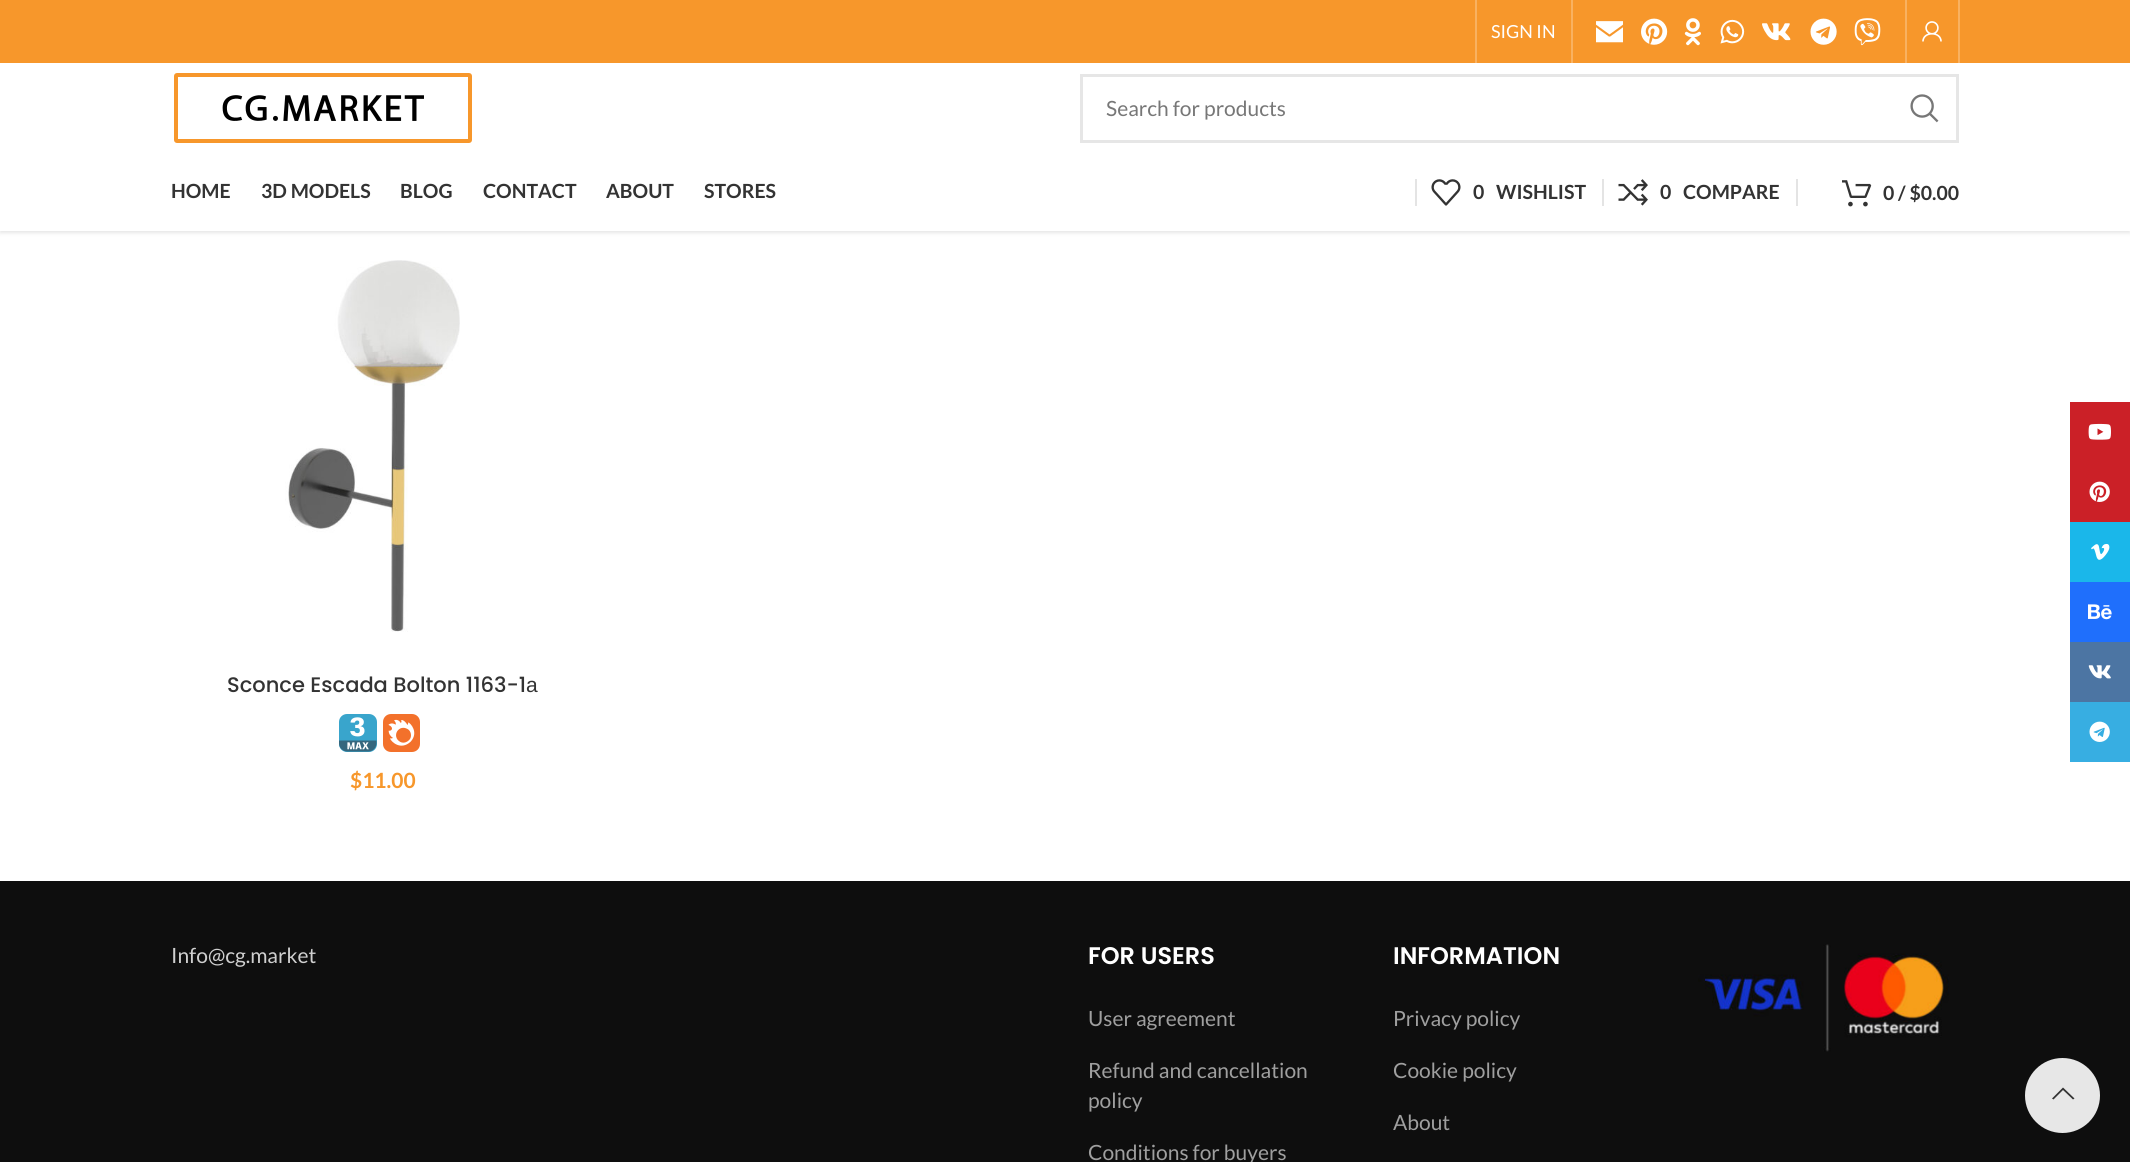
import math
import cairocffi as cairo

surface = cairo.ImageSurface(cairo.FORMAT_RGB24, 2130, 1162)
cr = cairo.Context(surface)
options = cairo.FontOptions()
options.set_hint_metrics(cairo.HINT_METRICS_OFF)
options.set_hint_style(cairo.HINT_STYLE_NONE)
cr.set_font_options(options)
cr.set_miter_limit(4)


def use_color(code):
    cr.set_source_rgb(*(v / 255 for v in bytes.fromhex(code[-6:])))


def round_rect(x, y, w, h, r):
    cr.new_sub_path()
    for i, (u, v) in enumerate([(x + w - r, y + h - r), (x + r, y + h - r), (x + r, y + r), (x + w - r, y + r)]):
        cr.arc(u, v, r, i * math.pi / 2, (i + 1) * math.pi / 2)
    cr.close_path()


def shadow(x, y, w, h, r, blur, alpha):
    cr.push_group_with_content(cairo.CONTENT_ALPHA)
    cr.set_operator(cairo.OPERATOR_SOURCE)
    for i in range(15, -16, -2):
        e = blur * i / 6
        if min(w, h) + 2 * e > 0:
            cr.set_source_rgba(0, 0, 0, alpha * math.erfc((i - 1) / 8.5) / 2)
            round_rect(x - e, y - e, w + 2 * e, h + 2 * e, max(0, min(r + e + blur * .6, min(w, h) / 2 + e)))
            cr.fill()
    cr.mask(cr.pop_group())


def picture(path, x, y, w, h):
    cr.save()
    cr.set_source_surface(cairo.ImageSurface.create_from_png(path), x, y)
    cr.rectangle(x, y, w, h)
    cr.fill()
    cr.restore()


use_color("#ffffff")
cr.paint()
use_color("#000000")
shadow(0, 2, 2130, 231, 0, 2, 0.1)
use_color("#f7972b")
cr.rectangle(0, 0, 2130, 63)
cr.fill()
use_color("#f9b160")
cr.rectangle(1475, 0, 2, 63)
cr.fill()
cr.select_font_face("Lato")
cr.set_font_size(18)
use_color("#ffffff")
cr.move_to(1491, 38)
cr.show_text("SIGN IN")
use_color("#f9b160")
cr.rectangle(1571, 0, 2, 63)
cr.fill()
picture("img1.png", 1596, 21, 27, 22)
picture("img2.png", 1641, 18, 27, 27)
picture("img3.png", 1684, 18, 17, 28)
picture("img4.png", 1720, 19, 25, 25)
picture("img5.png", 1762, 23, 29, 18)
picture("img6.png", 1810, 18, 27, 27)
picture("img7.png", 1854, 18, 27, 28)
cr.rectangle(1905, 0, 2, 63)
cr.fill()
picture("img8.png", 1922, 21, 20, 21)
cr.rectangle(1958, 0, 2, 63)
cr.fill()
use_color("#ffffff")
cr.rectangle(0, 63, 2130, 168)
cr.fill()
picture("img9.png", 174, 73, 298, 70)
cr.rectangle(1081.5, 75.5, 876, 66)
use_color("#e6e6e6")
cr.set_line_width(3)
cr.stroke()
cr.set_font_size(21)
use_color("#777777")
cr.move_to(1106, 116)
cr.show_text("Search for products")
picture("img10.png", 1910, 94, 29, 29)
cr.select_font_face("Lato", cairo.FONT_SLANT_NORMAL, cairo.FONT_WEIGHT_BOLD)
cr.set_font_size(19.5)
use_color("#333333")
cr.move_to(171, 198)
cr.show_text("HOME")
cr.move_to(261, 198)
cr.show_text("3D MODELS")
cr.move_to(400, 198)
cr.show_text("BLOG")
cr.move_to(483, 198)
cr.show_text("CONTACT")
cr.move_to(606, 198)
cr.show_text("ABOUT")
cr.move_to(704, 198)
cr.show_text("STORES")
use_color("#e4e4e4")
cr.rectangle(1415, 179, 2, 27)
cr.fill()
picture("img11.png", 1431, 179, 30, 27)
use_color("#333333")
cr.move_to(1473, 199)
cr.show_text("0")
cr.move_to(1496, 199)
cr.show_text("WISHLIST")
use_color("#e4e4e4")
cr.rectangle(1602, 179, 2, 27)
cr.fill()
picture("img12.png", 1618, 179, 30, 27)
use_color("#333333")
cr.move_to(1660, 199)
cr.show_text("0")
cr.move_to(1683, 199)
cr.show_text("COMPARE")
use_color("#e4e4e4")
cr.rectangle(1796, 179, 2, 27)
cr.fill()
picture("img13.png", 1842, 180, 30, 27)
use_color("#333333")
cr.move_to(1883, 200)
cr.show_text("0 / $0.00")
picture("img14.png", 285, 260, 175, 372)
cr.select_font_face("Poppins Medium")
cr.set_font_size(21)
cr.move_to(227, 692)
cr.show_text("Sconce Escada Bolton 1163-1")
cr.select_font_face("Liberation Sans")
cr.move_to(526, 692)
cr.show_text("а")
picture("img15.png", 339, 714, 38, 38)
picture("img16.png", 383, 714, 37, 38)
cr.select_font_face("Lato", cairo.FONT_SLANT_NORMAL, cairo.FONT_WEIGHT_BOLD)
use_color("#f7972b")
cr.move_to(350, 788)
cr.show_text("$11.00")
use_color("#0e0e0e")
cr.rectangle(0, 881, 2130, 281)
cr.fill()
cr.select_font_face("Lato")
use_color("#cfcfcf")
cr.move_to(171, 963)
cr.show_text("Info@cg.market")
cr.select_font_face("Poppins SemiBold")
cr.set_font_size(24)
use_color("#ffffff")
cr.move_to(1088, 964)
cr.show_text("FOR USERS")
cr.select_font_face("Lato")
cr.set_font_size(21)
use_color("#9f9f9f")
cr.move_to(1088, 1026)
cr.show_text("User agreement")
cr.move_to(1088, 1078)
cr.show_text("Refund and cancellation")
cr.move_to(1088, 1108)
cr.show_text("policy")
cr.move_to(1088, 1160)
cr.show_text("Conditions for buyers")
cr.select_font_face("Poppins SemiBold")
cr.set_font_size(24)
use_color("#ffffff")
cr.move_to(1393, 964)
cr.show_text("INFORMATION")
cr.select_font_face("Lato")
cr.set_font_size(21)
use_color("#9f9f9f")
cr.move_to(1393, 1026)
cr.show_text("Privacy policy")
cr.move_to(1393, 1078)
cr.show_text("Cookie policy")
cr.move_to(1393, 1130)
cr.show_text("About")
picture("img17.png", 1698, 944, 251, 108)
use_color("#cb2027")
cr.rectangle(2070, 402, 60, 120)
cr.fill()
picture("img18.png", 2088, 423, 23, 17)
picture("img19.png", 2089, 481, 21, 21)
use_color("#1ab7ea")
cr.rectangle(2070, 522, 60, 60)
cr.fill()
picture("img20.png", 2091, 543, 19, 17)
use_color("#1f6ffc")
cr.rectangle(2070, 582, 60, 60)
cr.fill()
picture("img21.png", 2088, 604, 24, 16)
use_color("#4c75a3")
cr.rectangle(2070, 642, 60, 60)
cr.fill()
picture("img22.png", 2088, 665, 23, 14)
use_color("#37aee2")
cr.rectangle(2070, 702, 60, 60)
cr.fill()
picture("img23.png", 2089, 721, 21, 21)
use_color("#e7e7e7")
cr.arc(2062.5, 1095.5, 37.5, 0, 2 * math.pi)
cr.fill()
use_color("#333333")
cr.new_path()
cr.move_to(2073, 1099.5)
cr.line_to(2074.5, 1098.5)
cr.line_to(2063, 1087.5)
cr.line_to(2052, 1098.5)
cr.line_to(2053.5, 1099.5)
cr.line_to(2063, 1090)
cr.close_path()
cr.fill()
surface.write_to_png("result.png")
